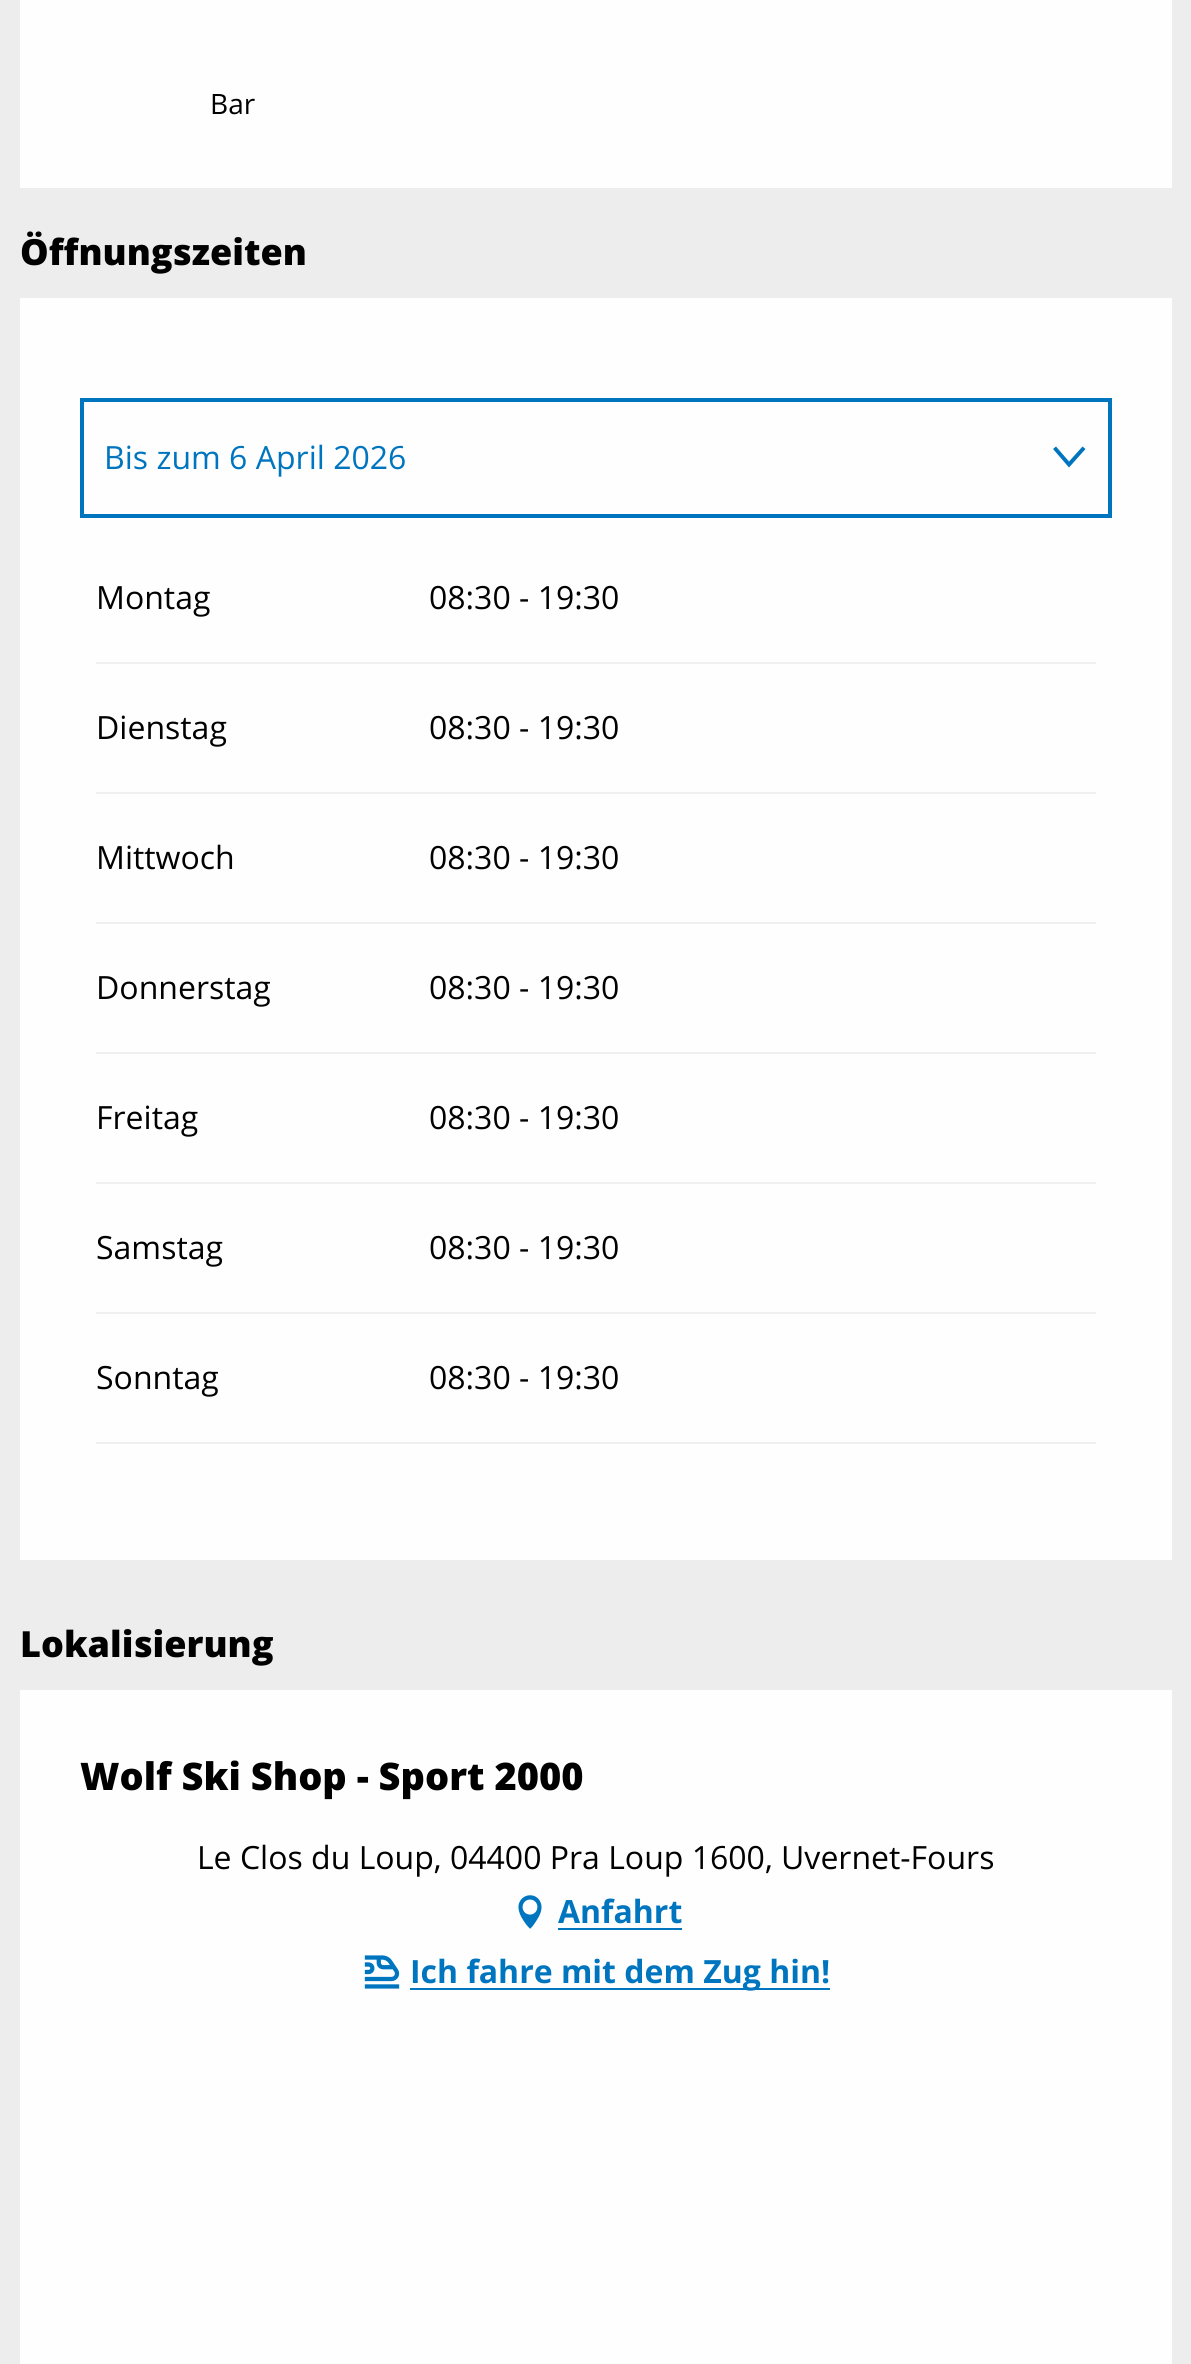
import math
import cairocffi as cairo

surface = cairo.ImageSurface(cairo.FORMAT_RGB24, 1191, 2364)
cr = cairo.Context(surface)
options = cairo.FontOptions()
options.set_hint_metrics(cairo.HINT_METRICS_OFF)
options.set_hint_style(cairo.HINT_STYLE_NONE)
cr.set_font_options(options)
cr.set_miter_limit(4)


def use_color(code):
    cr.set_source_rgb(*(v / 255 for v in bytes.fromhex(code[-6:])))


def picture(path, x, y, w, h):
    cr.save()
    cr.set_source_surface(cairo.ImageSurface.create_from_png(path), x, y)
    cr.rectangle(x, y, w, h)
    cr.fill()
    cr.restore()


use_color("#ededed")
cr.paint()
use_color("#fefefe")
cr.rectangle(20, 0, 1152, 188)
cr.fill()
cr.select_font_face("Open Sans")
cr.set_font_size(28)
use_color("#000000")
cr.move_to(210, 114)
cr.show_text("Bar")
cr.select_font_face("Open Sans ExtraBold")
cr.set_font_size(36)
cr.move_to(20, 265)
cr.show_text("Öffnungszeiten")
use_color("#fefefe")
cr.rectangle(20, 298, 1152, 1262)
cr.fill()
cr.rectangle(82, 400, 1028, 116)
use_color("#0075bf")
cr.set_line_width(4)
cr.stroke()
cr.select_font_face("Open Sans")
cr.set_font_size(32)
cr.move_to(104, 469)
cr.show_text("Bis zum 6 April 2026")
cr.new_path()
cr.move_to(1056, 446.5)
cr.line_to(1053, 449)
cr.line_to(1069, 467.5)
cr.line_to(1085.5, 449)
cr.line_to(1082.5, 446.5)
cr.line_to(1069, 461.5)
cr.close_path()
cr.fill()
use_color("#000000")
cr.move_to(96, 609)
cr.show_text("Montag")
cr.move_to(429, 609)
cr.show_text("08:30 - 19:30")
use_color("#f0f0f0")
cr.rectangle(96, 662, 1000, 2)
cr.fill()
use_color("#000000")
cr.move_to(96, 739)
cr.show_text("Dienstag")
cr.move_to(429, 739)
cr.show_text("08:30 - 19:30")
use_color("#f0f0f0")
cr.rectangle(96, 792, 1000, 2)
cr.fill()
use_color("#000000")
cr.move_to(96, 869)
cr.show_text("Mittwoch")
cr.move_to(429, 869)
cr.show_text("08:30 - 19:30")
use_color("#f0f0f0")
cr.rectangle(96, 922, 1000, 2)
cr.fill()
use_color("#000000")
cr.move_to(96, 999)
cr.show_text("Donnerstag")
cr.move_to(429, 999)
cr.show_text("08:30 - 19:30")
use_color("#f0f0f0")
cr.rectangle(96, 1052, 1000, 2)
cr.fill()
use_color("#000000")
cr.move_to(96, 1129)
cr.show_text("Freitag")
cr.move_to(429, 1129)
cr.show_text("08:30 - 19:30")
use_color("#f0f0f0")
cr.rectangle(96, 1182, 1000, 2)
cr.fill()
use_color("#000000")
cr.move_to(96, 1259)
cr.show_text("Samstag")
cr.move_to(429, 1259)
cr.show_text("08:30 - 19:30")
use_color("#f0f0f0")
cr.rectangle(96, 1312, 1000, 2)
cr.fill()
use_color("#000000")
cr.move_to(96, 1389)
cr.show_text("Sonntag")
cr.move_to(429, 1389)
cr.show_text("08:30 - 19:30")
use_color("#f0f0f0")
cr.rectangle(96, 1442, 1000, 2)
cr.fill()
cr.select_font_face("Open Sans ExtraBold")
cr.set_font_size(36)
use_color("#000000")
cr.move_to(20, 1657)
cr.show_text("Lokalisierung")
use_color("#fefefe")
cr.rectangle(20, 1690, 1152, 674)
cr.fill()
cr.set_font_size(38)
use_color("#000000")
cr.move_to(80, 1790)
cr.show_text("Wolf Ski Shop - Sport 2000")
cr.select_font_face("Open Sans")
cr.set_font_size(32)
cr.move_to(197, 1869)
cr.show_text("Le Clos du Loup, 04400 Pra Loup 1600, Uvernet-Fours")
picture("img1.png", 518, 1895, 24, 34)
cr.select_font_face("Open Sans", cairo.FONT_SLANT_NORMAL, cairo.FONT_WEIGHT_BOLD)
use_color("#0075bf")
cr.move_to(558, 1923)
cr.show_text("Anfahrt")
cr.rectangle(558, 1928, 124, 2)
cr.fill()
picture("img2.png", 364, 1955, 36, 34)
cr.rectangle(410, 1988, 420, 2)
cr.fill()
cr.move_to(410, 1983)
cr.show_text("Ich fahre mit dem Zug hin!")
surface.write_to_png("result.png")
